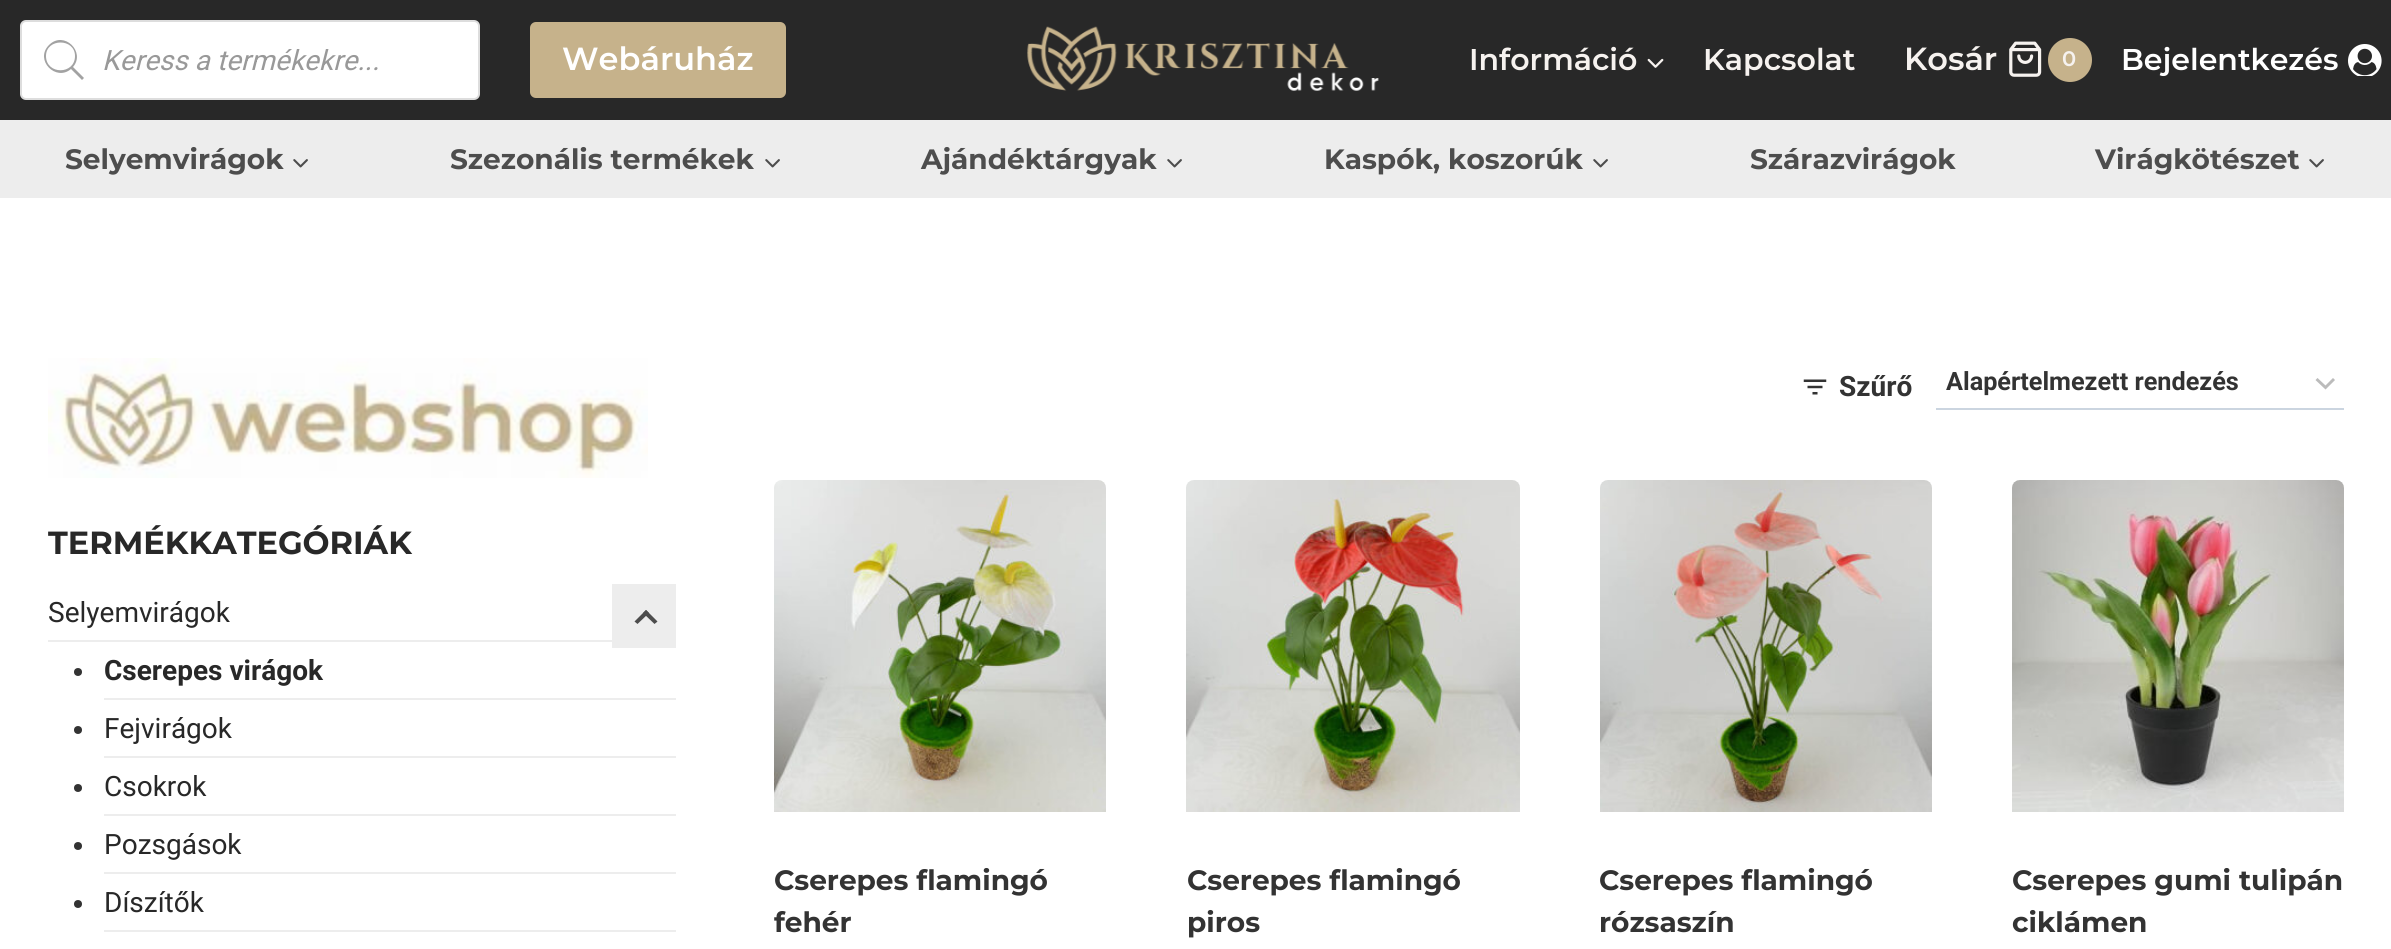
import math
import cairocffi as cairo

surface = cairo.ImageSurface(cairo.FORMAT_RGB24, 2391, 949)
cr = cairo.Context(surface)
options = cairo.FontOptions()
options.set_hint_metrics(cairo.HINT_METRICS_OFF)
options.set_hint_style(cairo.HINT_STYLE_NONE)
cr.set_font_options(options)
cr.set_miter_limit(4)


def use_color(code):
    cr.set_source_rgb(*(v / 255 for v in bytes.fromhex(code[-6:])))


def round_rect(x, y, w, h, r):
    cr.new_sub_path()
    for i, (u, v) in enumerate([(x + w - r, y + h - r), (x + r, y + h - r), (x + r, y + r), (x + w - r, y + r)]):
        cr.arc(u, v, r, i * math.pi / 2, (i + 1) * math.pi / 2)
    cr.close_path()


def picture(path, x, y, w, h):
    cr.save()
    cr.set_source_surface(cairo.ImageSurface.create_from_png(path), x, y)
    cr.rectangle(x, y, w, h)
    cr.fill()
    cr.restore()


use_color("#ffffff")
cr.paint()
use_color("#282828")
cr.rectangle(0, 0, 2391, 120)
cr.fill()
use_color("#ffffff")
round_rect(21, 21, 458, 78, 5)
cr.fill_preserve()
use_color("#dddddd")
cr.stroke()
use_color("#a2a2a2")
cr.new_path()
cr.move_to(84, 78)
cr.line_to(73, 67)
cr.curve_to(86, 52, 64, 30, 49, 45)
cr.curve_to(34, 60, 56, 82, 71, 69)
cr.line_to(82, 80)
cr.close_path()
cr.move_to(46, 56)
cr.curve_to(46, 38, 75, 38, 75, 56)
cr.curve_to(75, 75, 46, 75, 46, 56)
cr.close_path()
cr.fill()
cr.select_font_face("Roboto", cairo.FONT_SLANT_ITALIC)
cr.set_font_size(28)
use_color("#999999")
cr.move_to(102, 70)
cr.show_text("Keress a termékekre...")
use_color("#c6b28b")
round_rect(530, 22, 256, 76, 6)
cr.fill()
cr.select_font_face("Montserrat SemiBold")
cr.set_font_size(32)
use_color("#ffffff")
cr.move_to(562, 70)
cr.show_text("Webáruház")
picture("img1.png", 1027, 26, 352, 65)
cr.set_font_size(30)
use_color("#f6f2ef")
cr.move_to(1469, 70)
cr.show_text("Információ")
picture("img2.png", 1647, 58, 17, 10)
cr.move_to(1703, 70)
cr.show_text("Kapcsolat")
cr.set_font_size(32)
cr.move_to(1904, 70)
cr.show_text("Kosár")
picture("img3.png", 2009, 41, 33, 36)
use_color("#c6b28b")
cr.arc(2070, 60, 22, 0, 2 * math.pi)
cr.fill()
cr.set_font_size(21)
use_color("#f6f2ef")
cr.move_to(2062, 66)
cr.show_text("0")
cr.set_font_size(30)
use_color("#ffffff")
cr.move_to(2121, 70)
cr.show_text("Bejelentkezés")
picture("img4.png", 2348, 44, 34, 32)
use_color("#ededed")
cr.rectangle(0, 120, 2391, 78)
cr.fill()
cr.select_font_face("Montserrat", cairo.FONT_SLANT_NORMAL, cairo.FONT_WEIGHT_BOLD)
cr.set_font_size(28)
use_color("#4d4d4d")
cr.move_to(65, 169)
cr.show_text("Selyemvirágok")
picture("img5.png", 293, 159, 15, 9)
cr.move_to(450, 169)
cr.show_text("Szezonális termékek")
picture("img5.png", 765, 159, 15, 9)
cr.move_to(921, 169)
cr.show_text("Ajándéktárgyak")
picture("img5.png", 1167, 159, 15, 9)
cr.move_to(1324, 169)
cr.show_text("Kaspók, koszorúk")
picture("img5.png", 1593, 159, 15, 9)
cr.move_to(1750, 169)
cr.show_text("Szárazvirágok")
cr.move_to(2095, 169)
cr.show_text("Virágkötészet")
picture("img5.png", 2309, 159, 15, 9)
picture("img6.png", 48, 358, 600, 120)
cr.set_font_size(32)
use_color("#282828")
cr.move_to(48, 554)
cr.show_text("TERMÉKKATEGÓRIÁK")
use_color("#ededed")
cr.rectangle(48, 640, 564, 2)
cr.fill()
cr.select_font_face("Roboto")
cr.set_font_size(28)
use_color("#282828")
cr.move_to(48, 622)
cr.show_text("Selyemvirágok")
use_color("#ededed")
cr.rectangle(612, 584, 64, 64)
cr.fill()
use_color("#4d4d4d")
cr.new_path()
cr.move_to(634.5, 621.5)
cr.line_to(646, 610)
cr.line_to(649, 613)
cr.line_to(637.5, 624)
cr.close_path()
cr.fill()
cr.new_path()
cr.move_to(643, 613)
cr.line_to(646, 610)
cr.line_to(657.5, 621.5)
cr.line_to(654.5, 624)
cr.close_path()
cr.fill()
use_color("#333333")
cr.arc(78, 672, 4, 0, 2 * math.pi)
cr.fill()
use_color("#ededed")
cr.rectangle(104, 698, 572, 2)
cr.fill()
cr.select_font_face("Roboto", cairo.FONT_SLANT_NORMAL, cairo.FONT_WEIGHT_BOLD)
use_color("#282828")
cr.move_to(104, 680)
cr.show_text("Cserepes virágok")
use_color("#333333")
cr.new_path()
cr.arc(78, 730, 4, 0, 2 * math.pi)
cr.fill()
use_color("#ededed")
cr.rectangle(104, 756, 572, 2)
cr.fill()
cr.select_font_face("Roboto")
use_color("#282828")
cr.move_to(104, 738)
cr.show_text("Fejvirágok")
use_color("#333333")
cr.new_path()
cr.arc(78, 788, 4, 0, 2 * math.pi)
cr.fill()
use_color("#ededed")
cr.rectangle(104, 814, 572, 2)
cr.fill()
use_color("#282828")
cr.move_to(104, 796)
cr.show_text("Csokrok")
use_color("#333333")
cr.new_path()
cr.arc(78, 846, 4, 0, 2 * math.pi)
cr.fill()
use_color("#ededed")
cr.rectangle(104, 872, 572, 2)
cr.fill()
use_color("#282828")
cr.move_to(104, 854)
cr.show_text("Pozsgások")
use_color("#333333")
cr.new_path()
cr.arc(78, 904, 4, 0, 2 * math.pi)
cr.fill()
use_color("#ededed")
cr.rectangle(104, 930, 572, 2)
cr.fill()
use_color("#282828")
cr.move_to(104, 912)
cr.show_text("Díszítők")
picture("img7.png", 1803, 379, 24, 16)
cr.select_font_face("Roboto", cairo.FONT_SLANT_NORMAL, cairo.FONT_WEIGHT_BOLD)
use_color("#333333")
cr.move_to(1839, 396)
cr.show_text("Szűrő")
cr.new_path()
cr.move_to(2316.5, 379)
cr.line_to(2325.5, 387.5)
cr.line_to(2334, 379)
use_color("#bbbbbb")
cr.set_line_width(2.9)
cr.stroke()
use_color("#cbd5e0")
cr.rectangle(1936, 408, 408, 2)
cr.fill()
cr.set_font_size(25.25)
use_color("#333333")
cr.move_to(1946, 390)
cr.show_text("Alapértelmezett rendezés")
picture("img8.png", 774, 480, 332, 332)
cr.select_font_face("Montserrat", cairo.FONT_SLANT_NORMAL, cairo.FONT_WEIGHT_BOLD)
cr.set_font_size(28)
cr.move_to(774, 890)
cr.show_text("Cserepes flamingó")
cr.move_to(774, 932)
cr.show_text("fehér")
picture("img9.png", 1186, 480, 334, 332)
cr.move_to(1187, 890)
cr.show_text("Cserepes flamingó")
cr.move_to(1187, 932)
cr.show_text("piros")
picture("img10.png", 1600, 480, 332, 332)
cr.move_to(1599, 890)
cr.show_text("Cserepes flamingó")
cr.move_to(1599, 932)
cr.show_text("rózsaszín")
picture("img11.png", 2012, 480, 332, 332)
cr.move_to(2012, 890)
cr.show_text("Cserepes gumi tulipán")
cr.move_to(2012, 932)
cr.show_text("ciklámen")
surface.write_to_png("result.png")
